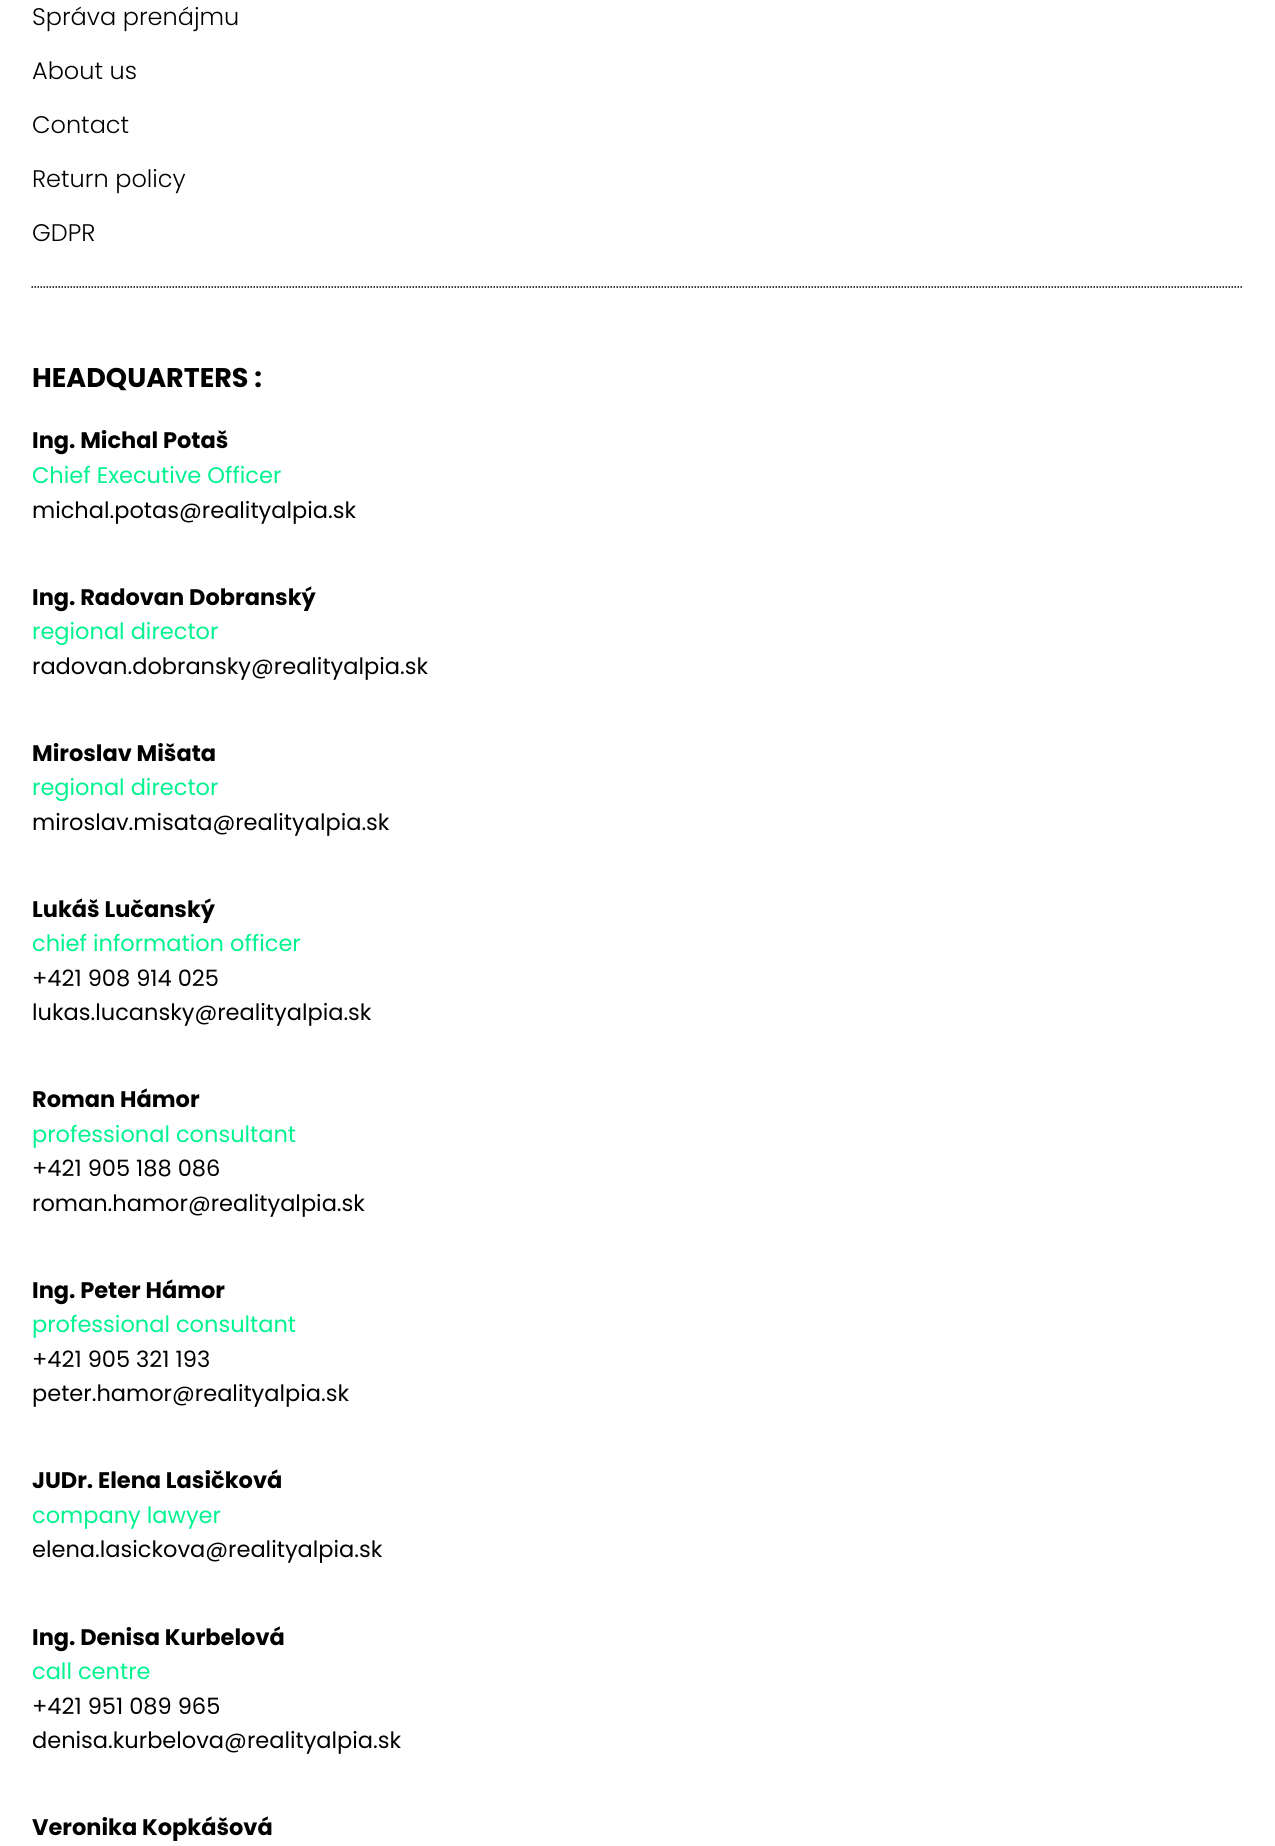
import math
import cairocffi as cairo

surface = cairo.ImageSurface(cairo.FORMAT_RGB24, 1275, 1846)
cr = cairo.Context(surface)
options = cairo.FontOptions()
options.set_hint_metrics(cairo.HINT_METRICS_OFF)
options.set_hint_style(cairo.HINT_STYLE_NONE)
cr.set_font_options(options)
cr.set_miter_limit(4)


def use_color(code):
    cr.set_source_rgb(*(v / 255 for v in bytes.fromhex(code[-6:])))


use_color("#ffffff")
cr.paint()
cr.new_path()
cr.move_to(31.5, 287)
cr.line_to(1243.5, 287)
use_color("#000000")
cr.set_line_width(1.5)
cr.set_dash([1.5, 1.5])
cr.stroke()
cr.select_font_face("Poppins Light")
cr.set_font_size(24)
cr.move_to(32, 25)
cr.show_text("Správa prenájmu")
cr.move_to(32, 79)
cr.show_text("About us")
cr.move_to(32, 133)
cr.show_text("Contact")
cr.move_to(32, 187)
cr.show_text("Return policy")
cr.move_to(32, 241)
cr.show_text("GDPR")
cr.select_font_face("Poppins", cairo.FONT_SLANT_NORMAL, cairo.FONT_WEIGHT_BOLD)
cr.set_font_size(27)
cr.move_to(32, 387)
cr.show_text("HEADQUARTERS :")
cr.set_font_size(22.5)
cr.move_to(32, 448)
cr.show_text("Ing. Michal Potaš")
cr.select_font_face("Poppins")
use_color("#00f38e")
cr.move_to(32, 483)
cr.show_text("Chief Executive Officer")
use_color("#000000")
cr.move_to(32, 518)
cr.show_text("michal.potas@realityalpia.sk")
cr.select_font_face("Poppins", cairo.FONT_SLANT_NORMAL, cairo.FONT_WEIGHT_BOLD)
cr.move_to(32, 605)
cr.show_text("Ing. Radovan Dobranský")
cr.select_font_face("Poppins")
use_color("#00f38e")
cr.move_to(32, 639)
cr.show_text("regional director")
use_color("#000000")
cr.move_to(32, 674)
cr.show_text("radovan.dobransky@realityalpia.sk")
cr.select_font_face("Poppins", cairo.FONT_SLANT_NORMAL, cairo.FONT_WEIGHT_BOLD)
cr.move_to(32, 761)
cr.show_text("Miroslav Mišata")
cr.select_font_face("Poppins")
use_color("#00f38e")
cr.move_to(32, 795)
cr.show_text("regional director")
use_color("#000000")
cr.move_to(32, 830)
cr.show_text("miroslav.misata@realityalpia.sk")
cr.select_font_face("Poppins", cairo.FONT_SLANT_NORMAL, cairo.FONT_WEIGHT_BOLD)
cr.move_to(32, 917)
cr.show_text("Lukáš Lučanský")
cr.select_font_face("Poppins")
use_color("#00f38e")
cr.move_to(32, 951)
cr.show_text("chief information officer")
use_color("#000000")
cr.move_to(32, 986)
cr.show_text("+421 908 914 025")
cr.move_to(32, 1020)
cr.show_text("lukas.lucansky@realityalpia.sk")
cr.select_font_face("Poppins", cairo.FONT_SLANT_NORMAL, cairo.FONT_WEIGHT_BOLD)
cr.move_to(32, 1107)
cr.show_text("Roman Hámor")
cr.select_font_face("Poppins")
use_color("#00f38e")
cr.move_to(32, 1142)
cr.show_text("professional consultant")
use_color("#000000")
cr.move_to(32, 1176)
cr.show_text("+421 905 188 086")
cr.move_to(32, 1211)
cr.show_text("roman.hamor@realityalpia.sk")
cr.select_font_face("Poppins", cairo.FONT_SLANT_NORMAL, cairo.FONT_WEIGHT_BOLD)
cr.move_to(32, 1298)
cr.show_text("Ing. Peter Hámor")
cr.select_font_face("Poppins")
use_color("#00f38e")
cr.move_to(32, 1332)
cr.show_text("professional consultant")
use_color("#000000")
cr.move_to(32, 1367)
cr.show_text("+421 905 321 193")
cr.move_to(32, 1401)
cr.show_text("peter.hamor@realityalpia.sk")
cr.select_font_face("Poppins", cairo.FONT_SLANT_NORMAL, cairo.FONT_WEIGHT_BOLD)
cr.move_to(32, 1488)
cr.show_text("JUDr. Elena Lasičková")
cr.select_font_face("Poppins")
use_color("#00f38e")
cr.move_to(32, 1523)
cr.show_text("company lawyer")
use_color("#000000")
cr.move_to(32, 1557)
cr.show_text("elena.lasickova@realityalpia.sk")
cr.select_font_face("Poppins", cairo.FONT_SLANT_NORMAL, cairo.FONT_WEIGHT_BOLD)
cr.move_to(32, 1645)
cr.show_text("Ing. Denisa Kurbelová")
cr.select_font_face("Poppins")
use_color("#00f38e")
cr.move_to(32, 1679)
cr.show_text("call centre")
use_color("#000000")
cr.move_to(32, 1714)
cr.show_text("+421 951 089 965")
cr.move_to(32, 1748)
cr.show_text("denisa.kurbelova@realityalpia.sk")
cr.select_font_face("Poppins", cairo.FONT_SLANT_NORMAL, cairo.FONT_WEIGHT_BOLD)
cr.move_to(32, 1835)
cr.show_text("Veronika Kopkášová")
surface.write_to_png("result.png")
